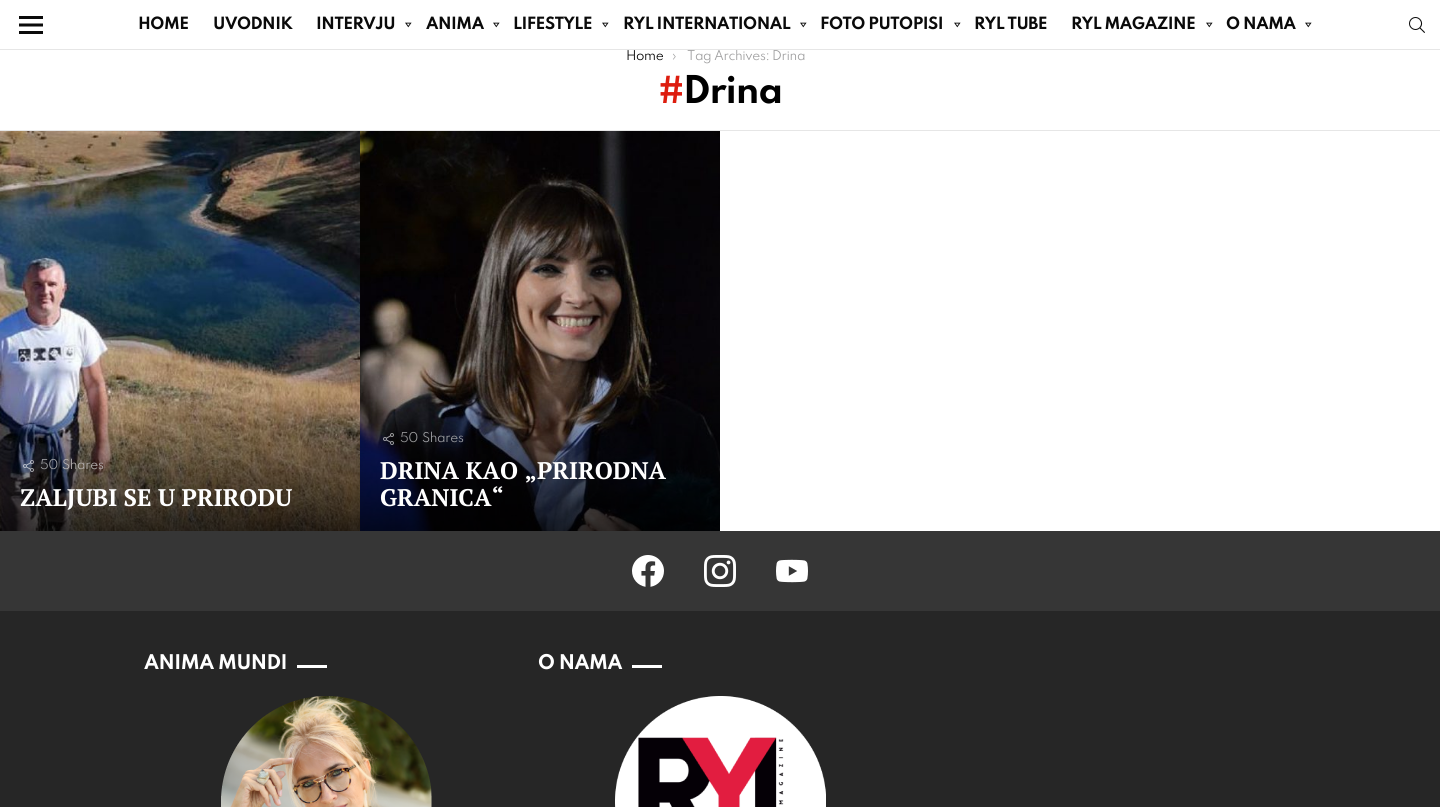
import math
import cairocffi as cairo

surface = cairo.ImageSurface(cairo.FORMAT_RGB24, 1440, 807)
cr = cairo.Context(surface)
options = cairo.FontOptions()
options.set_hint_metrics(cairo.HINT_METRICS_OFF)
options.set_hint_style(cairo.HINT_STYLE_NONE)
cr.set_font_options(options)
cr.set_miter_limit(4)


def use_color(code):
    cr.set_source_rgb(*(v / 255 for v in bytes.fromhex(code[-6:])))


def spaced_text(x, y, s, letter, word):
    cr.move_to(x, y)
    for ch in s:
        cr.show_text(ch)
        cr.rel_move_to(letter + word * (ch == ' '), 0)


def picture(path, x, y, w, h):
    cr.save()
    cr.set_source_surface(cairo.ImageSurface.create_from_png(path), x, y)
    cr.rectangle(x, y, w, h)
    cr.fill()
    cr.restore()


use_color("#ffffff")
cr.paint()
picture("img1.png", 19, 16, 24, 18)
cr.select_font_face("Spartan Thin", cairo.FONT_SLANT_NORMAL, cairo.FONT_WEIGHT_BOLD)
cr.set_font_size(15)
use_color("#0a0a0a")
spaced_text(138, 29, "HOME", -0.5, 0)
spaced_text(213, 29, "UVODNIK", -0.5, 0)
spaced_text(316, 29, "INTERVJU", -0.5, 0)
picture("img2.png", 405, 22, 7, 6)
spaced_text(426, 29, "ANIMA", -0.5, 0)
picture("img2.png", 493, 22, 7, 6)
spaced_text(513, 29, "LIFESTYLE", -0.5, 0)
picture("img2.png", 602, 22, 7, 6)
spaced_text(623, 29, "RYL INTERNATIONAL", -0.5, 0)
picture("img2.png", 800, 22, 7, 6)
spaced_text(820, 29, "FOTO PUTOPISI", -0.5, 0)
picture("img2.png", 954, 22, 7, 6)
spaced_text(974, 29, "RYL TUBE", -0.5, 0)
spaced_text(1071, 29, "RYL MAGAZINE", -0.5, 0)
picture("img2.png", 1206, 22, 7, 6)
spaced_text(1226, 29, "O NAMA", -0.5, 0)
picture("img2.png", 1305, 22, 7, 6)
picture("img3.png", 1409, 17, 16, 16)
cr.select_font_face("Spartan Thin")
cr.set_font_size(12)
use_color("#9d9d9e")
spaced_text(687, 60, "Tag Archives: Drina", -0.4, 0)
use_color("#e6e6e6")
cr.rectangle(0, 49, 1440, 1)
cr.fill()
use_color("#000000")
spaced_text(626, 60, "Home", -0.4, 0)
use_color("#9d9d9e")
spaced_text(672, 60, "›", -0.4, 0)
cr.select_font_face("Spartan Thin", cairo.FONT_SLANT_NORMAL, cairo.FONT_WEIGHT_BOLD)
cr.set_font_size(34)
use_color("#dd1d0f")
spaced_text(658, 103, "#", -1, 0)
use_color("#000000")
spaced_text(683, 103, "Drina", -1, 0)
use_color("#e6e6e6")
cr.rectangle(0, 130, 1440, 1)
cr.fill()
picture("img4.png", 0, 131, 360, 400)
picture("img5.png", 23, 460, 11, 12)
cr.select_font_face("Spartan Thin")
cr.set_font_size(12)
use_color("#a1a2a6")
spaced_text(40, 469, "50", -0.4, 0)
use_color("#b7b3b2")
spaced_text(62, 469, "Shares", -0.4, 0)
cr.select_font_face("PT Serif", cairo.FONT_SLANT_NORMAL, cairo.FONT_WEIGHT_BOLD)
cr.set_font_size(24)
use_color("#ffffff")
cr.move_to(20, 506)
cr.show_text("ZALJUBI SE U PRIRODU")
picture("img6.png", 360, 131, 360, 400)
picture("img7.png", 383, 433, 11, 12)
cr.select_font_face("Spartan Thin")
cr.set_font_size(12)
use_color("#9d9d9e")
spaced_text(400, 442, "50", -0.4, 0)
use_color("#a1a2a6")
spaced_text(422, 442, "Shares", -0.4, 0)
cr.select_font_face("PT Serif", cairo.FONT_SLANT_NORMAL, cairo.FONT_WEIGHT_BOLD)
cr.set_font_size(24)
use_color("#ffffff")
cr.move_to(380, 479)
cr.show_text("DRINA KAO „PRIRODNA")
cr.move_to(380, 506)
cr.show_text("GRANICA“")
use_color("#363636")
cr.rectangle(0, 531, 1440, 80)
cr.fill()
picture("img8.png", 632, 555, 32, 32)
picture("img9.png", 704, 555, 32, 32)
picture("img10.png", 776, 559, 32, 24)
use_color("#262626")
cr.rectangle(0, 611, 1440, 196)
cr.fill()
cr.select_font_face("Spartan Thin", cairo.FONT_SLANT_NORMAL, cairo.FONT_WEIGHT_BOLD)
cr.set_font_size(18)
use_color("#ffffff")
spaced_text(144, 669, "ANIMA MUNDI", -0.5, 0)
cr.rectangle(297, 665, 30, 3)
cr.fill()
picture("img11.png", 221, 696, 211, 111)
spaced_text(538, 669, "O NAMA", -0.5, 0)
cr.rectangle(632, 665, 30, 3)
cr.fill()
picture("img12.png", 615, 696, 211, 111)
surface.write_to_png("result.png")
